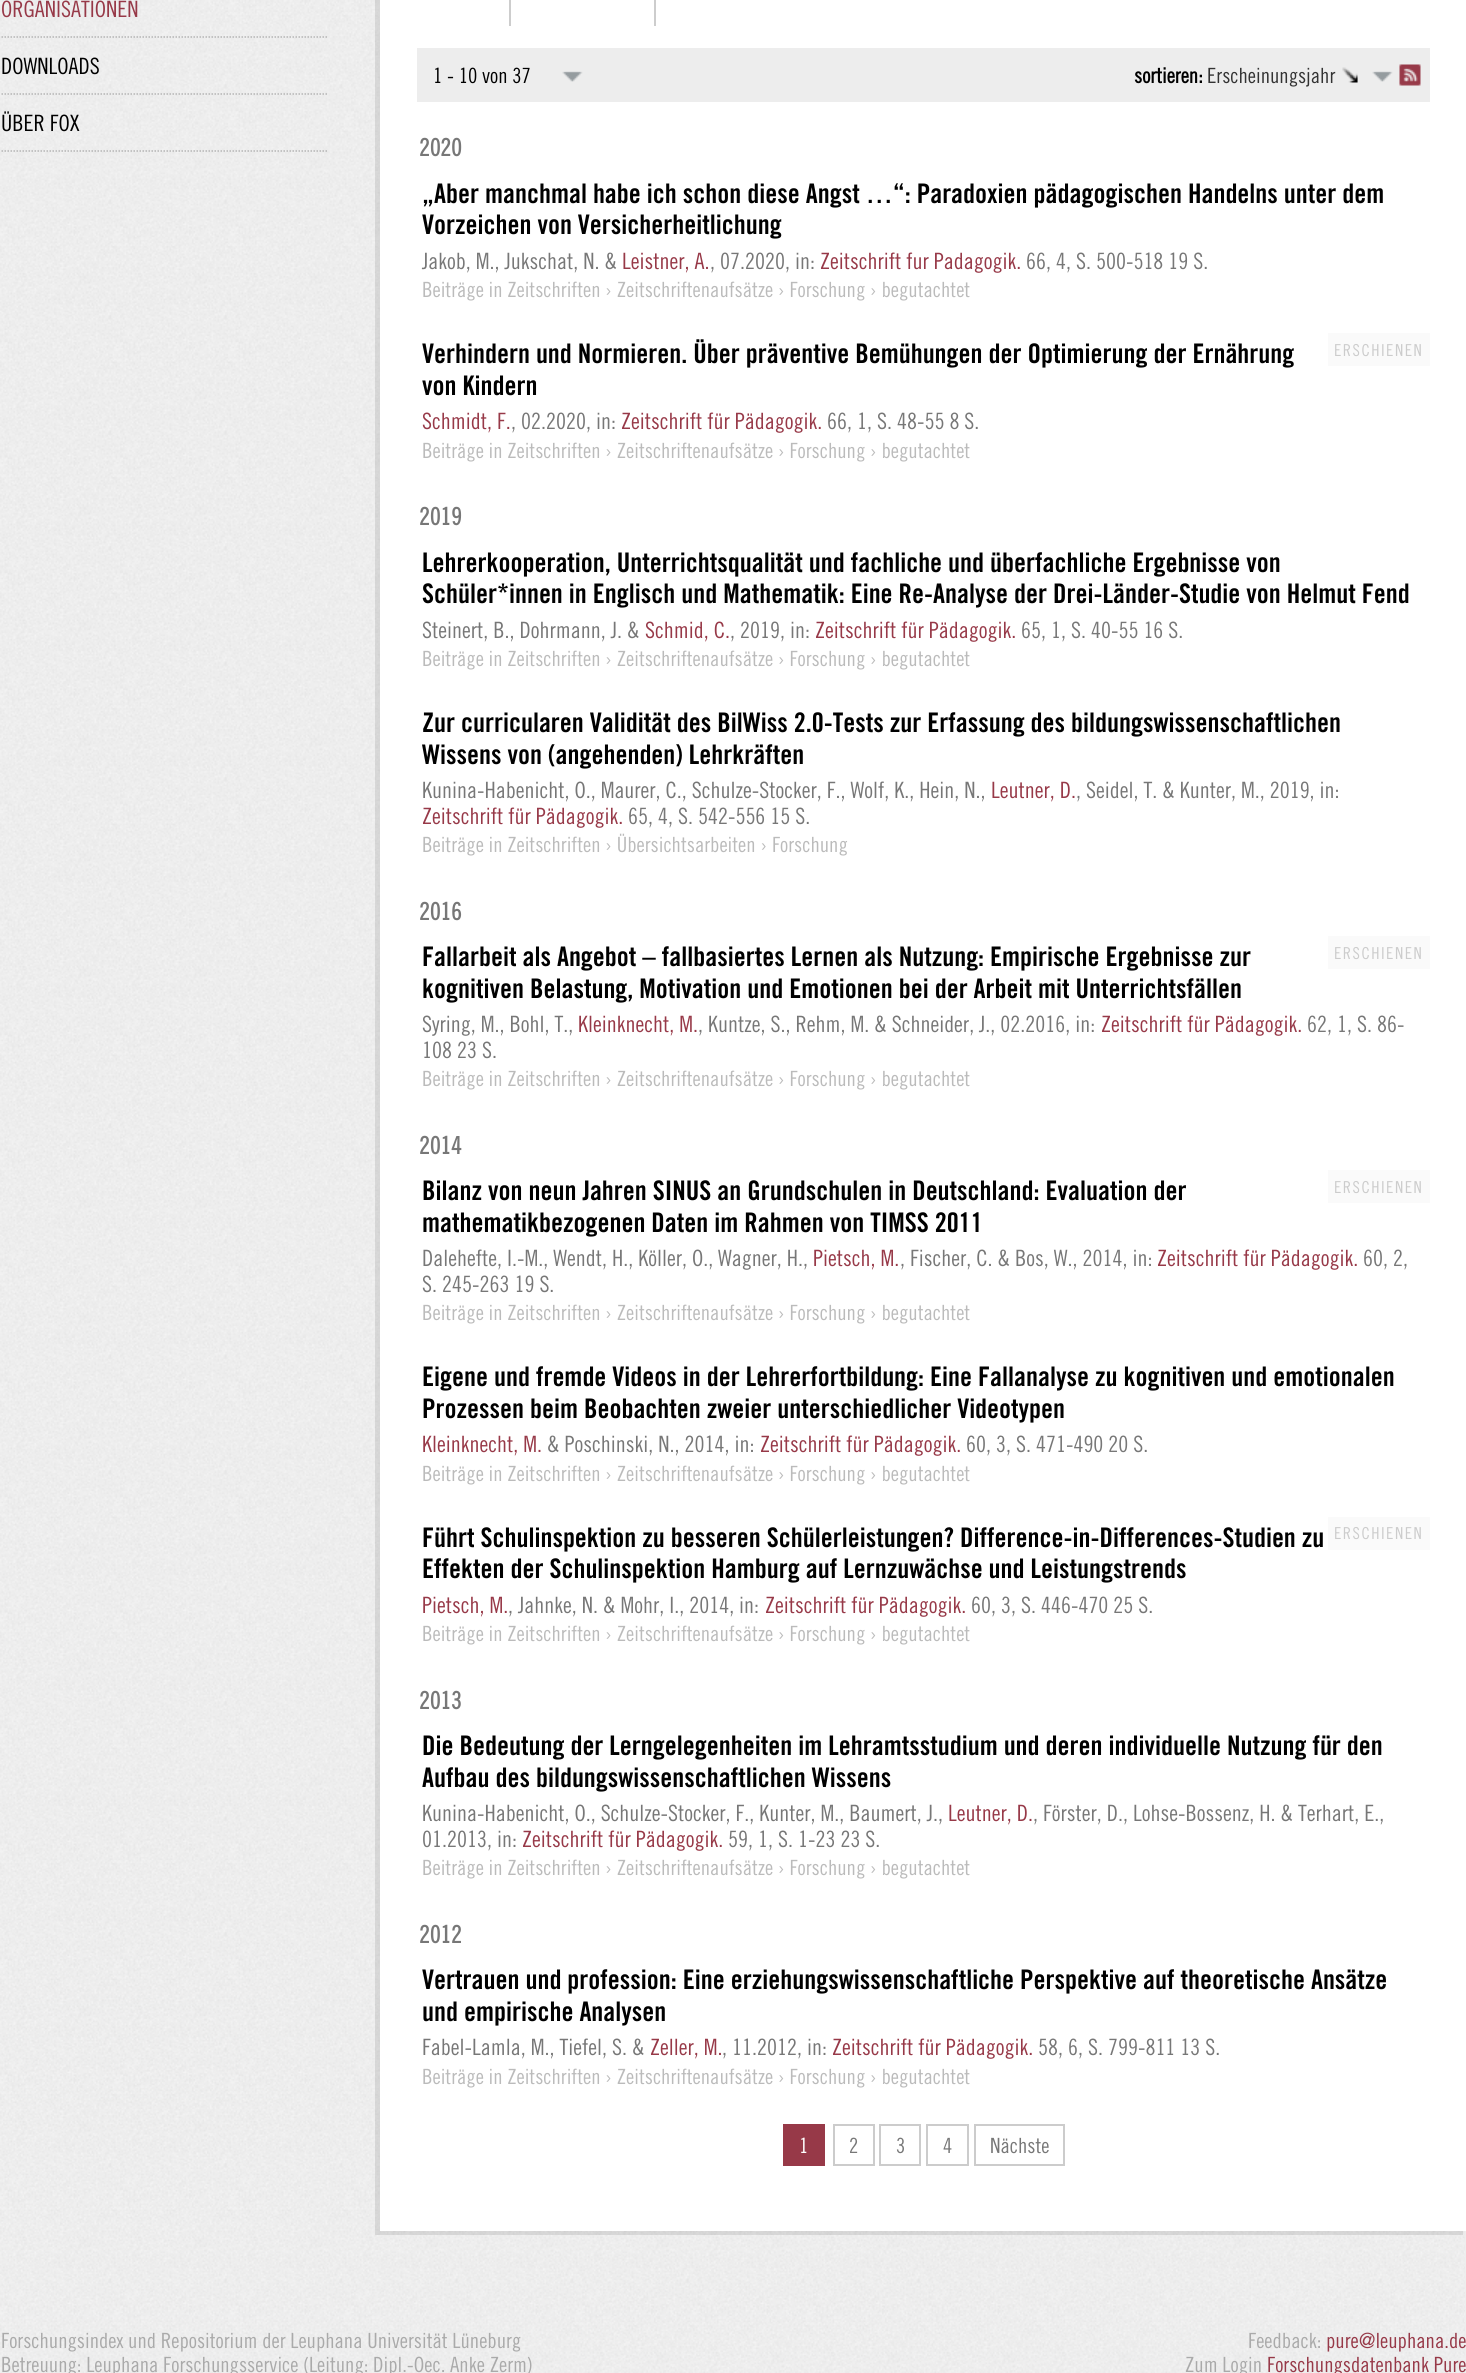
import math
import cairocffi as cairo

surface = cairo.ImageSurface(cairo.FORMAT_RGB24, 1466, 2373)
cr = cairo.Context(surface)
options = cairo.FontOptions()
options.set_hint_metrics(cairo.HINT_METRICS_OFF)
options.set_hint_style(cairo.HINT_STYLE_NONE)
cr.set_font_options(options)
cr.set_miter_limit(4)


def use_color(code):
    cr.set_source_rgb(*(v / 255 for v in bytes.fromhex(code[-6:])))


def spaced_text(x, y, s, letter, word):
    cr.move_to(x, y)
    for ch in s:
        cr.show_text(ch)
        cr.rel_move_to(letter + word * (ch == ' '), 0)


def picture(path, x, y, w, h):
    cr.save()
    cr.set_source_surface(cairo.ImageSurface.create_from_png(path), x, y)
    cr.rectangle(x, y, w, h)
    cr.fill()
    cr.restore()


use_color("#eeeeee")
cr.paint()
picture("img1.png", 0, 0, 1465, 2373)
cr.new_path()
cr.move_to(1.5, 151)
cr.line_to(327, 151)
use_color("#b5b5b5")
cr.set_line_width(1.5)
cr.set_dash([1.5, 1.5])
cr.stroke()
cr.select_font_face("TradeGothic")
cr.set_font_size(22.5)
use_color("#973948")
cr.move_to(1, 17)
cr.show_text("ORGANISATIONEN")
cr.new_path()
cr.move_to(1.5, 37)
cr.line_to(327, 37)
use_color("#b5b5b5")
cr.stroke()
use_color("#000000")
cr.move_to(1, 74)
cr.show_text("DOWNLOADS")
cr.new_path()
cr.move_to(1.5, 94)
cr.line_to(327, 94)
use_color("#b5b5b5")
cr.stroke()
use_color("#000000")
cr.move_to(1, 131)
cr.show_text("ÜBER FOX")
cr.set_source_rgba(0, 0, 0, 0.1)
cr.new_path()
cr.move_to(375, -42)
cr.line_to(375, 2235)
cr.line_to(1463, 2235)
cr.line_to(1463, 2230)
cr.line_to(380, 2230)
cr.line_to(380, -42)
cr.close_path()
cr.fill()
use_color("#ffffff")
cr.rectangle(380, 0, 1086, 2231)
cr.fill()
use_color("#cdcdcd")
cr.rectangle(509, 0, 2, 26)
cr.fill()
cr.rectangle(654, 0, 2, 26)
cr.fill()
use_color("#ededed")
cr.rectangle(417, 48, 1013, 54)
cr.fill()
picture("img2.png", 562, 71, 21, 11)
cr.set_font_size(21)
use_color("#000000")
cr.move_to(433, 83)
cr.show_text("1 - 10 von 37")
picture("img2.png", 1372, 71, 21, 11)
cr.select_font_face("TradeGothic", cairo.FONT_SLANT_NORMAL, cairo.FONT_WEIGHT_BOLD)
cr.move_to(1134, 83)
cr.show_text("sortieren:")
cr.select_font_face("TradeGothic")
use_color("#333333")
cr.move_to(1207, 83)
cr.show_text("Erscheinungsjahr")
picture("img3.png", 1342, 67, 16, 16)
picture("img4.png", 1399, 64, 22, 22)
cr.select_font_face("TradeGothic", cairo.FONT_SLANT_NORMAL, cairo.FONT_WEIGHT_BOLD)
cr.set_font_size(24)
use_color("#777777")
cr.move_to(419, 156)
cr.show_text("2020")
cr.select_font_face("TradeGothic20", cairo.FONT_SLANT_NORMAL, cairo.FONT_WEIGHT_BOLD)
cr.set_font_size(27)
use_color("#000000")
cr.move_to(422, 203)
cr.show_text("„Aber manchmal habe ich schon diese Angst …“: Paradoxien pädagogischen Handelns unter dem")
cr.move_to(422, 234)
cr.show_text("Vorzeichen von Versicherheitlichung")
cr.select_font_face("TradeGothic")
cr.set_font_size(22.5)
use_color("#777777")
cr.move_to(422, 269)
cr.show_text("Jakob, M., Jukschat, N. &")
use_color("#973948")
cr.move_to(622, 269)
cr.show_text("Leistner, A.")
use_color("#777777")
cr.move_to(710, 269)
cr.show_text(", 07.2020, in:")
use_color("#973948")
cr.move_to(820, 269)
cr.show_text("Zeitschrift fur Padagogik.")
use_color("#777777")
cr.move_to(1026, 269)
cr.show_text("66, 4, S. 500-518 19 S.")
cr.set_font_size(21)
use_color("#bbbbbb")
cr.move_to(422, 297)
cr.show_text("Beiträge in Zeitschriften › Zeitschriftenaufsätze › Forschung › begutachtet")
cr.select_font_face("TradeGothic20", cairo.FONT_SLANT_NORMAL, cairo.FONT_WEIGHT_BOLD)
cr.set_font_size(27)
use_color("#000000")
cr.move_to(422, 363)
cr.show_text("Verhindern und Normieren. Über präventive Bemühungen der Optimierung der Ernährung")
cr.move_to(422, 395)
cr.show_text("von Kindern")
cr.select_font_face("TradeGothic")
cr.set_font_size(22.5)
use_color("#973948")
cr.move_to(422, 429)
cr.show_text("Schmidt, F.")
use_color("#777777")
cr.move_to(511, 429)
cr.show_text(", 02.2020, in:")
use_color("#973948")
cr.move_to(621, 429)
cr.show_text("Zeitschrift für Pädagogik.")
use_color("#777777")
cr.move_to(827, 429)
cr.show_text("66, 1, S. 48-55 8 S.")
cr.set_font_size(21)
use_color("#bbbbbb")
cr.move_to(422, 458)
cr.show_text("Beiträge in Zeitschriften › Zeitschriftenaufsätze › Forschung › begutachtet")
use_color("#fafafa")
cr.rectangle(1328, 333, 102, 33)
cr.fill()
cr.set_font_size(16.5)
use_color("#cccccc")
spaced_text(1334, 356, "ERSCHIENEN", 1.5, 0)
cr.select_font_face("TradeGothic", cairo.FONT_SLANT_NORMAL, cairo.FONT_WEIGHT_BOLD)
cr.set_font_size(24)
use_color("#777777")
cr.move_to(419, 525)
cr.show_text("2019")
cr.select_font_face("TradeGothic20", cairo.FONT_SLANT_NORMAL, cairo.FONT_WEIGHT_BOLD)
cr.set_font_size(27)
use_color("#000000")
cr.move_to(422, 572)
cr.show_text("Lehrerkooperation, Unterrichtsqualität und fachliche und überfachliche Ergebnisse von")
cr.move_to(422, 603)
cr.show_text("Schüler*innen in Englisch und Mathematik: Eine Re-Analyse der Drei-Länder-Studie von Helmut Fend")
cr.select_font_face("TradeGothic")
cr.set_font_size(22.5)
use_color("#777777")
cr.move_to(422, 638)
cr.show_text("Steinert, B., Dohrmann, J. &")
use_color("#973948")
cr.move_to(645, 638)
cr.show_text("Schmid, C.")
use_color("#777777")
cr.move_to(730, 638)
cr.show_text(", 2019, in:")
use_color("#973948")
cr.move_to(815, 638)
cr.show_text("Zeitschrift für Pädagogik.")
use_color("#777777")
cr.move_to(1021, 638)
cr.show_text("65, 1, S. 40-55 16 S.")
cr.set_font_size(21)
use_color("#bbbbbb")
cr.move_to(422, 666)
cr.show_text("Beiträge in Zeitschriften › Zeitschriftenaufsätze › Forschung › begutachtet")
cr.select_font_face("TradeGothic20", cairo.FONT_SLANT_NORMAL, cairo.FONT_WEIGHT_BOLD)
cr.set_font_size(27)
use_color("#000000")
cr.move_to(422, 732)
cr.show_text("Zur curricularen Validität des BilWiss 2.0-Tests zur Erfassung des bildungswissenschaftlichen")
cr.move_to(422, 764)
cr.show_text("Wissens von (angehenden) Lehrkräften")
cr.select_font_face("TradeGothic")
cr.set_font_size(22.5)
use_color("#777777")
cr.move_to(422, 798)
cr.show_text("Kunina-Habenicht, O., Maurer, C., Schulze-Stocker, F., Wolf, K., Hein, N.,")
use_color("#973948")
cr.move_to(991, 798)
cr.show_text("Leutner, D.")
use_color("#777777")
cr.move_to(1076, 798)
cr.show_text(", Seidel, T. & Kunter, M., 2019, in:")
use_color("#973948")
cr.move_to(422, 824)
cr.show_text("Zeitschrift für Pädagogik.")
use_color("#777777")
cr.move_to(628, 824)
cr.show_text("65, 4, S. 542-556 15 S.")
cr.set_font_size(21)
use_color("#bbbbbb")
cr.move_to(422, 852)
cr.show_text("Beiträge in Zeitschriften › Übersichtsarbeiten › Forschung")
cr.select_font_face("TradeGothic", cairo.FONT_SLANT_NORMAL, cairo.FONT_WEIGHT_BOLD)
cr.set_font_size(24)
use_color("#777777")
cr.move_to(419, 920)
cr.show_text("2016")
cr.select_font_face("TradeGothic20", cairo.FONT_SLANT_NORMAL, cairo.FONT_WEIGHT_BOLD)
cr.set_font_size(27)
use_color("#000000")
cr.move_to(422, 966)
cr.show_text("Fallarbeit als Angebot – fallbasiertes Lernen als Nutzung: Empirische Ergebnisse zur")
cr.move_to(422, 998)
cr.show_text("kognitiven Belastung, Motivation und Emotionen bei der Arbeit mit Unterrichtsfällen")
cr.select_font_face("TradeGothic")
cr.set_font_size(22.5)
use_color("#777777")
cr.move_to(422, 1032)
cr.show_text("Syring, M., Bohl, T.,")
use_color("#973948")
cr.move_to(578, 1032)
cr.show_text("Kleinknecht, M.")
use_color("#777777")
cr.move_to(698, 1032)
cr.show_text(", Kuntze, S., Rehm, M. & Schneider, J., 02.2016, in:")
use_color("#973948")
cr.move_to(1101, 1032)
cr.show_text("Zeitschrift für Pädagogik.")
use_color("#777777")
cr.move_to(1307, 1032)
cr.show_text("62, 1, S. 86-")
cr.move_to(422, 1058)
cr.show_text("108 23 S.")
cr.set_font_size(21)
use_color("#bbbbbb")
cr.move_to(422, 1086)
cr.show_text("Beiträge in Zeitschriften › Zeitschriftenaufsätze › Forschung › begutachtet")
use_color("#fafafa")
cr.rectangle(1328, 936, 102, 33)
cr.fill()
cr.set_font_size(16.5)
use_color("#cccccc")
spaced_text(1334, 959, "ERSCHIENEN", 1.5, 0)
cr.select_font_face("TradeGothic", cairo.FONT_SLANT_NORMAL, cairo.FONT_WEIGHT_BOLD)
cr.set_font_size(24)
use_color("#777777")
cr.move_to(419, 1154)
cr.show_text("2014")
cr.select_font_face("TradeGothic20", cairo.FONT_SLANT_NORMAL, cairo.FONT_WEIGHT_BOLD)
cr.set_font_size(27)
use_color("#000000")
cr.move_to(422, 1200)
cr.show_text("Bilanz von neun Jahren SINUS an Grundschulen in Deutschland: Evaluation der")
cr.move_to(422, 1232)
cr.show_text("mathematikbezogenen Daten im Rahmen von TIMSS 2011")
cr.select_font_face("TradeGothic")
cr.set_font_size(22.5)
use_color("#777777")
cr.move_to(422, 1266)
cr.show_text("Dalehefte, I.-M., Wendt, H., Köller, O., Wagner, H.,")
use_color("#973948")
cr.move_to(813, 1266)
cr.show_text("Pietsch, M.")
use_color("#777777")
cr.move_to(900, 1266)
cr.show_text(", Fischer, C. & Bos, W., 2014, in:")
use_color("#973948")
cr.move_to(1157, 1266)
cr.show_text("Zeitschrift für Pädagogik.")
use_color("#777777")
cr.move_to(1363, 1266)
cr.show_text("60, 2,")
cr.move_to(422, 1292)
cr.show_text("S. 245-263 19 S.")
cr.set_font_size(21)
use_color("#bbbbbb")
cr.move_to(422, 1320)
cr.show_text("Beiträge in Zeitschriften › Zeitschriftenaufsätze › Forschung › begutachtet")
use_color("#fafafa")
cr.rectangle(1328, 1170, 102, 33)
cr.fill()
cr.set_font_size(16.5)
use_color("#cccccc")
spaced_text(1334, 1193, "ERSCHIENEN", 1.5, 0)
cr.select_font_face("TradeGothic20", cairo.FONT_SLANT_NORMAL, cairo.FONT_WEIGHT_BOLD)
cr.set_font_size(27)
use_color("#000000")
cr.move_to(422, 1386)
cr.show_text("Eigene und fremde Videos in der Lehrerfortbildung: Eine Fallanalyse zu kognitiven und emotionalen")
cr.move_to(422, 1418)
cr.show_text("Prozessen beim Beobachten zweier unterschiedlicher Videotypen")
cr.select_font_face("TradeGothic")
cr.set_font_size(22.5)
use_color("#973948")
cr.move_to(422, 1452)
cr.show_text("Kleinknecht, M.")
use_color("#777777")
cr.move_to(547, 1452)
cr.show_text("& Poschinski, N., 2014, in:")
use_color("#973948")
cr.move_to(760, 1452)
cr.show_text("Zeitschrift für Pädagogik.")
use_color("#777777")
cr.move_to(966, 1452)
cr.show_text("60, 3, S. 471-490 20 S.")
cr.set_font_size(21)
use_color("#bbbbbb")
cr.move_to(422, 1481)
cr.show_text("Beiträge in Zeitschriften › Zeitschriftenaufsätze › Forschung › begutachtet")
cr.select_font_face("TradeGothic20", cairo.FONT_SLANT_NORMAL, cairo.FONT_WEIGHT_BOLD)
cr.set_font_size(27)
use_color("#000000")
cr.move_to(422, 1547)
cr.show_text("Führt Schulinspektion zu besseren Schülerleistungen? Difference-in-Differences-Studien zu")
cr.move_to(422, 1578)
cr.show_text("Effekten der Schulinspektion Hamburg auf Lernzuwächse und Leistungstrends")
cr.select_font_face("TradeGothic")
cr.set_font_size(22.5)
use_color("#973948")
cr.move_to(422, 1613)
cr.show_text("Pietsch, M.")
use_color("#777777")
cr.move_to(508, 1613)
cr.show_text(", Jahnke, N. & Mohr, I., 2014, in:")
use_color("#973948")
cr.move_to(765, 1613)
cr.show_text("Zeitschrift für Pädagogik.")
use_color("#777777")
cr.move_to(971, 1613)
cr.show_text("60, 3, S. 446-470 25 S.")
cr.set_font_size(21)
use_color("#bbbbbb")
cr.move_to(422, 1641)
cr.show_text("Beiträge in Zeitschriften › Zeitschriftenaufsätze › Forschung › begutachtet")
use_color("#fafafa")
cr.rectangle(1328, 1517, 102, 33)
cr.fill()
cr.set_font_size(16.5)
use_color("#cccccc")
spaced_text(1334, 1539, "ERSCHIENEN", 1.5, 0)
cr.select_font_face("TradeGothic", cairo.FONT_SLANT_NORMAL, cairo.FONT_WEIGHT_BOLD)
cr.set_font_size(24)
use_color("#777777")
cr.move_to(419, 1709)
cr.show_text("2013")
cr.select_font_face("TradeGothic20", cairo.FONT_SLANT_NORMAL, cairo.FONT_WEIGHT_BOLD)
cr.set_font_size(27)
use_color("#000000")
cr.move_to(422, 1755)
cr.show_text("Die Bedeutung der Lerngelegenheiten im Lehramtsstudium und deren individuelle Nutzung für den")
cr.move_to(422, 1787)
cr.show_text("Aufbau des bildungswissenschaftlichen Wissens")
cr.select_font_face("TradeGothic")
cr.set_font_size(22.5)
use_color("#777777")
cr.move_to(422, 1821)
cr.show_text("Kunina-Habenicht, O., Schulze-Stocker, F., Kunter, M., Baumert, J.,")
use_color("#973948")
cr.move_to(948, 1821)
cr.show_text("Leutner, D.")
use_color("#777777")
cr.move_to(1033, 1821)
cr.show_text(", Förster, D., Lohse-Bossenz, H. & Terhart, E.,")
cr.move_to(422, 1847)
cr.show_text("01.2013, in:")
use_color("#973948")
cr.move_to(522, 1847)
cr.show_text("Zeitschrift für Pädagogik.")
use_color("#777777")
cr.move_to(728, 1847)
cr.show_text("59, 1, S. 1-23 23 S.")
cr.set_font_size(21)
use_color("#bbbbbb")
cr.move_to(422, 1875)
cr.show_text("Beiträge in Zeitschriften › Zeitschriftenaufsätze › Forschung › begutachtet")
cr.select_font_face("TradeGothic", cairo.FONT_SLANT_NORMAL, cairo.FONT_WEIGHT_BOLD)
cr.set_font_size(24)
use_color("#777777")
cr.move_to(419, 1943)
cr.show_text("2012")
cr.select_font_face("TradeGothic20", cairo.FONT_SLANT_NORMAL, cairo.FONT_WEIGHT_BOLD)
cr.set_font_size(27)
use_color("#000000")
cr.move_to(422, 1989)
cr.show_text("Vertrauen und profession: Eine erziehungswissenschaftliche Perspektive auf theoretische Ansätze")
cr.move_to(422, 2021)
cr.show_text("und empirische Analysen")
cr.select_font_face("TradeGothic")
cr.set_font_size(22.5)
use_color("#777777")
cr.move_to(422, 2055)
cr.show_text("Fabel-Lamla, M., Tiefel, S. &")
use_color("#973948")
cr.move_to(650, 2055)
cr.show_text("Zeller, M.")
use_color("#777777")
cr.move_to(722, 2055)
cr.show_text(", 11.2012, in:")
use_color("#973948")
cr.move_to(832, 2055)
cr.show_text("Zeitschrift für Pädagogik.")
use_color("#777777")
cr.move_to(1038, 2055)
cr.show_text("58, 6, S. 799-811 13 S.")
cr.set_font_size(21)
use_color("#bbbbbb")
cr.move_to(422, 2084)
cr.show_text("Beiträge in Zeitschriften › Zeitschriftenaufsätze › Forschung › begutachtet")
use_color("#973948")
cr.rectangle(783, 2124, 42, 42)
cr.fill()
use_color("#ffffff")
cr.move_to(799, 2153)
cr.show_text("1")
cr.rectangle(834, 2125, 40, 40)
use_color("#cccccc")
cr.set_line_width(2)
cr.set_dash([])
cr.stroke()
use_color("#777777")
cr.move_to(849, 2153)
cr.show_text("2")
cr.rectangle(880, 2125, 40, 40)
use_color("#cccccc")
cr.stroke()
use_color("#777777")
cr.move_to(896, 2153)
cr.show_text("3")
cr.rectangle(927, 2125, 41, 40)
use_color("#cccccc")
cr.stroke()
use_color("#777777")
cr.move_to(943, 2153)
cr.show_text("4")
cr.rectangle(975, 2125, 89, 40)
use_color("#cccccc")
cr.stroke()
use_color("#777777")
cr.move_to(990, 2153)
cr.show_text("Nächste")
use_color("#aaaaaa")
cr.move_to(1, 2348)
cr.show_text("Forschungsindex und Repositorium der Leuphana Universität Lüneburg")
cr.move_to(1, 2372)
cr.show_text("Betreuung: Leuphana Forschungsservice (Leitung: Dipl.-Oec. Anke Zerm)")
cr.move_to(1248, 2348)
cr.show_text("Feedback:")
use_color("#973948")
cr.move_to(1326, 2348)
cr.show_text("pure@leuphana.de")
use_color("#aaaaaa")
cr.move_to(1185, 2372)
cr.show_text("Zum Login")
use_color("#973948")
cr.move_to(1267, 2372)
cr.show_text("Forschungsdatenbank Pure")
surface.write_to_png("result.png")
